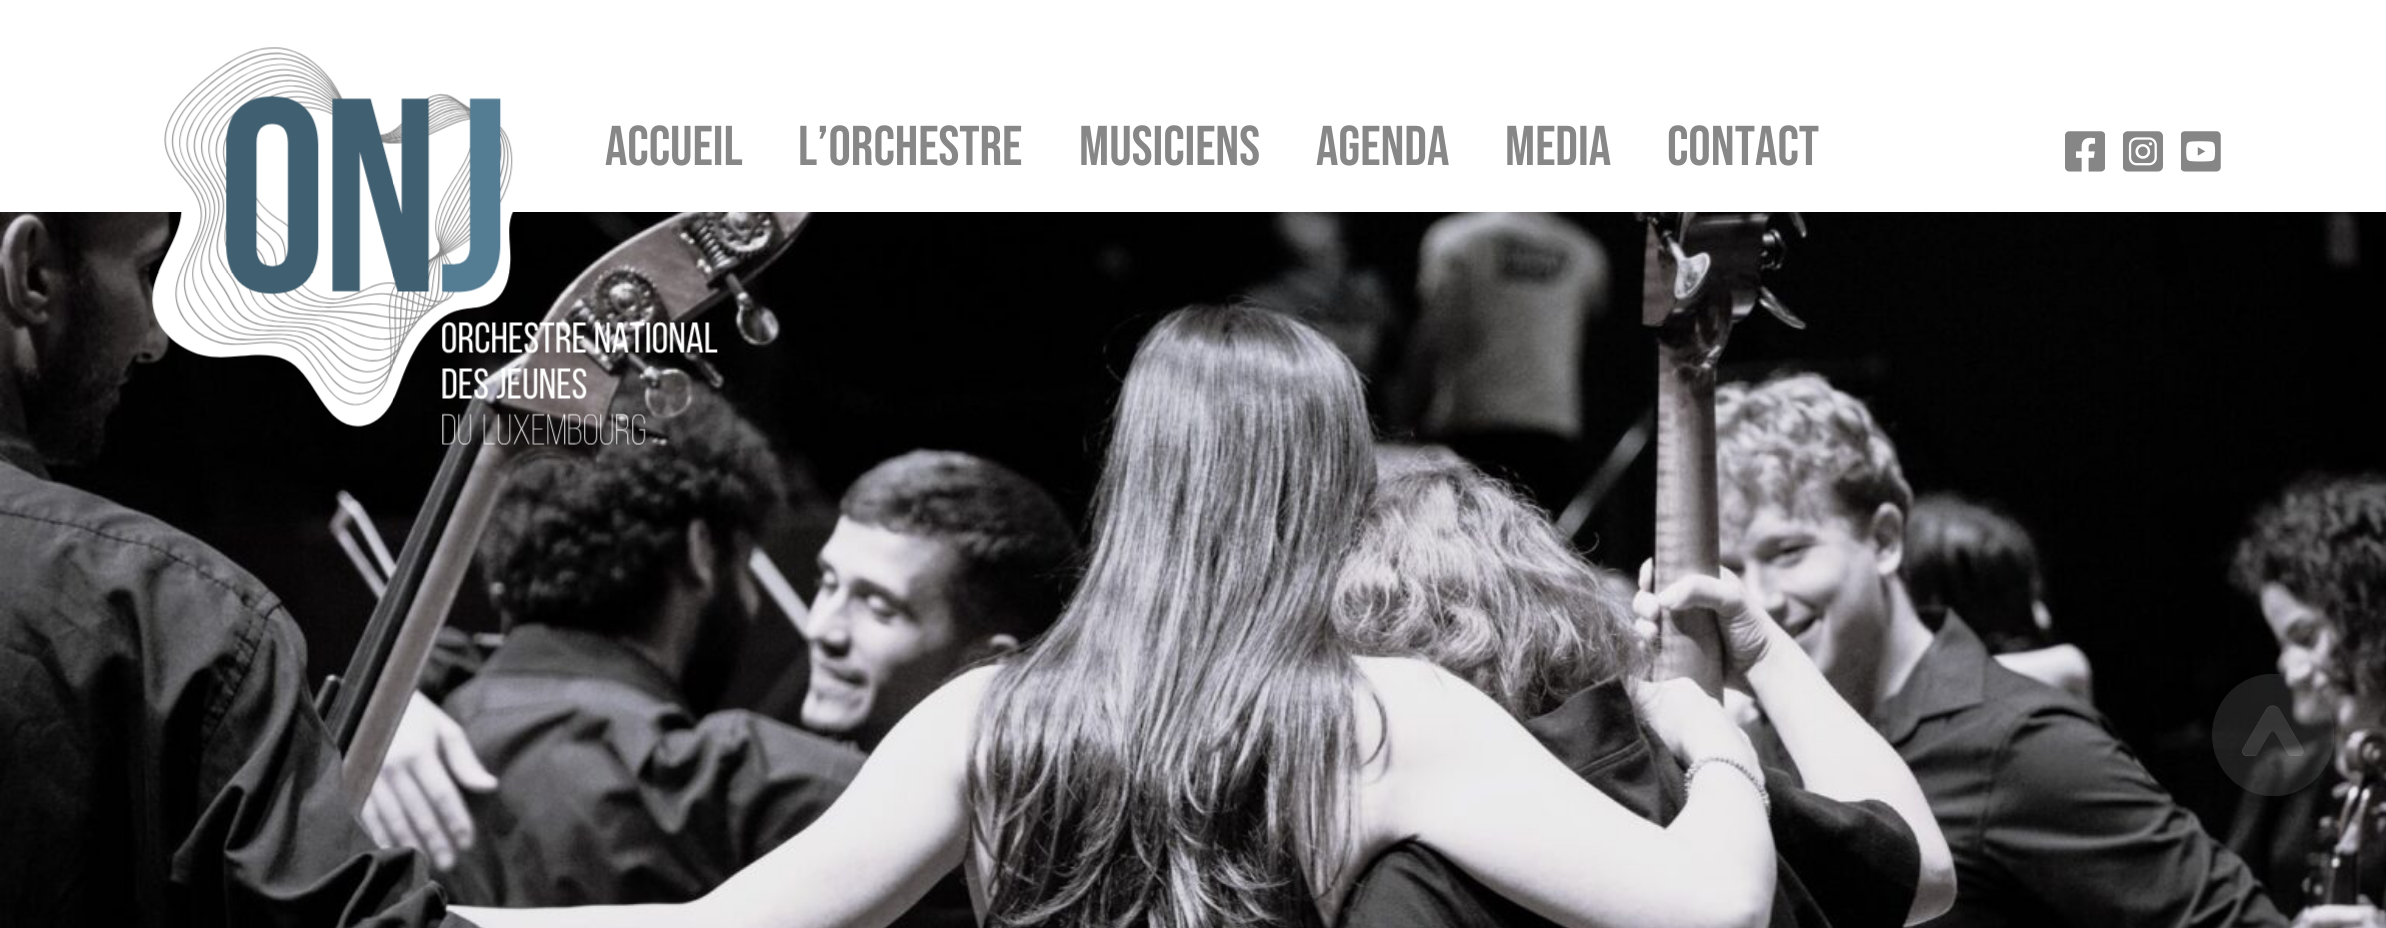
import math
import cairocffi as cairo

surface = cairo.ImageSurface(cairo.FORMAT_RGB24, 2386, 928)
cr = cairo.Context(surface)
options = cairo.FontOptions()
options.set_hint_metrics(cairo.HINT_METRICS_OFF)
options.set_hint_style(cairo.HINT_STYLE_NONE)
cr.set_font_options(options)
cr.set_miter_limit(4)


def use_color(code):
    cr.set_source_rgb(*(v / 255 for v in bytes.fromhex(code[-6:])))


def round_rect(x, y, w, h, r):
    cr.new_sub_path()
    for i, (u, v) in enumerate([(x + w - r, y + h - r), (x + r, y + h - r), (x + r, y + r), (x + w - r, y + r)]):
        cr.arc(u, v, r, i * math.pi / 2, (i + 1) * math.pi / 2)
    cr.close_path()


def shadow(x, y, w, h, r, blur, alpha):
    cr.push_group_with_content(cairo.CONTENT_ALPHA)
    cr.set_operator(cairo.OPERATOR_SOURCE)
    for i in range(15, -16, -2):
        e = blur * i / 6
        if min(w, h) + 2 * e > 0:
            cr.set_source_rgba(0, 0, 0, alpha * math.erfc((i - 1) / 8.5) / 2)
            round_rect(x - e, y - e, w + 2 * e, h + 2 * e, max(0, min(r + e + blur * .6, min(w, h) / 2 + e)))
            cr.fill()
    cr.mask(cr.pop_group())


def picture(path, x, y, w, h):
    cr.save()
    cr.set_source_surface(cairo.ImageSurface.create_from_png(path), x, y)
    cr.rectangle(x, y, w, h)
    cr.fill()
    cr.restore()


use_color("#ffffff")
cr.paint()
picture("img5.png", 0, 212, 2386, 716)
use_color("#000000")
shadow(0, 0, 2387, 212, 0, 22, 0.1)
use_color("#ffffff")
cr.rectangle(0, 0, 2386, 212)
cr.fill()
cr.select_font_face("Bebas Neue", cairo.FONT_SLANT_NORMAL, cairo.FONT_WEIGHT_BOLD)
cr.set_font_size(56)
use_color("#878787")
cr.move_to(605, 165)
cr.show_text("ACCUEIL")
picture("img1.png", 152, 47, 566, 398)
cr.move_to(798, 165)
cr.show_text("L’ORCHESTRE")
cr.move_to(1079, 165)
cr.show_text("MUSICIENS")
cr.move_to(1316, 165)
cr.show_text("AGENDA")
cr.move_to(1505, 165)
cr.show_text("MEDIA")
cr.move_to(1667, 165)
cr.show_text("CONTACT")
picture("img2.png", 2065, 131, 40, 41)
picture("img3.png", 2123, 131, 40, 41)
picture("img4.png", 2181, 131, 40, 41)
picture("img6.png", 2212, 674, 122, 122)
surface.write_to_png("result.png")
